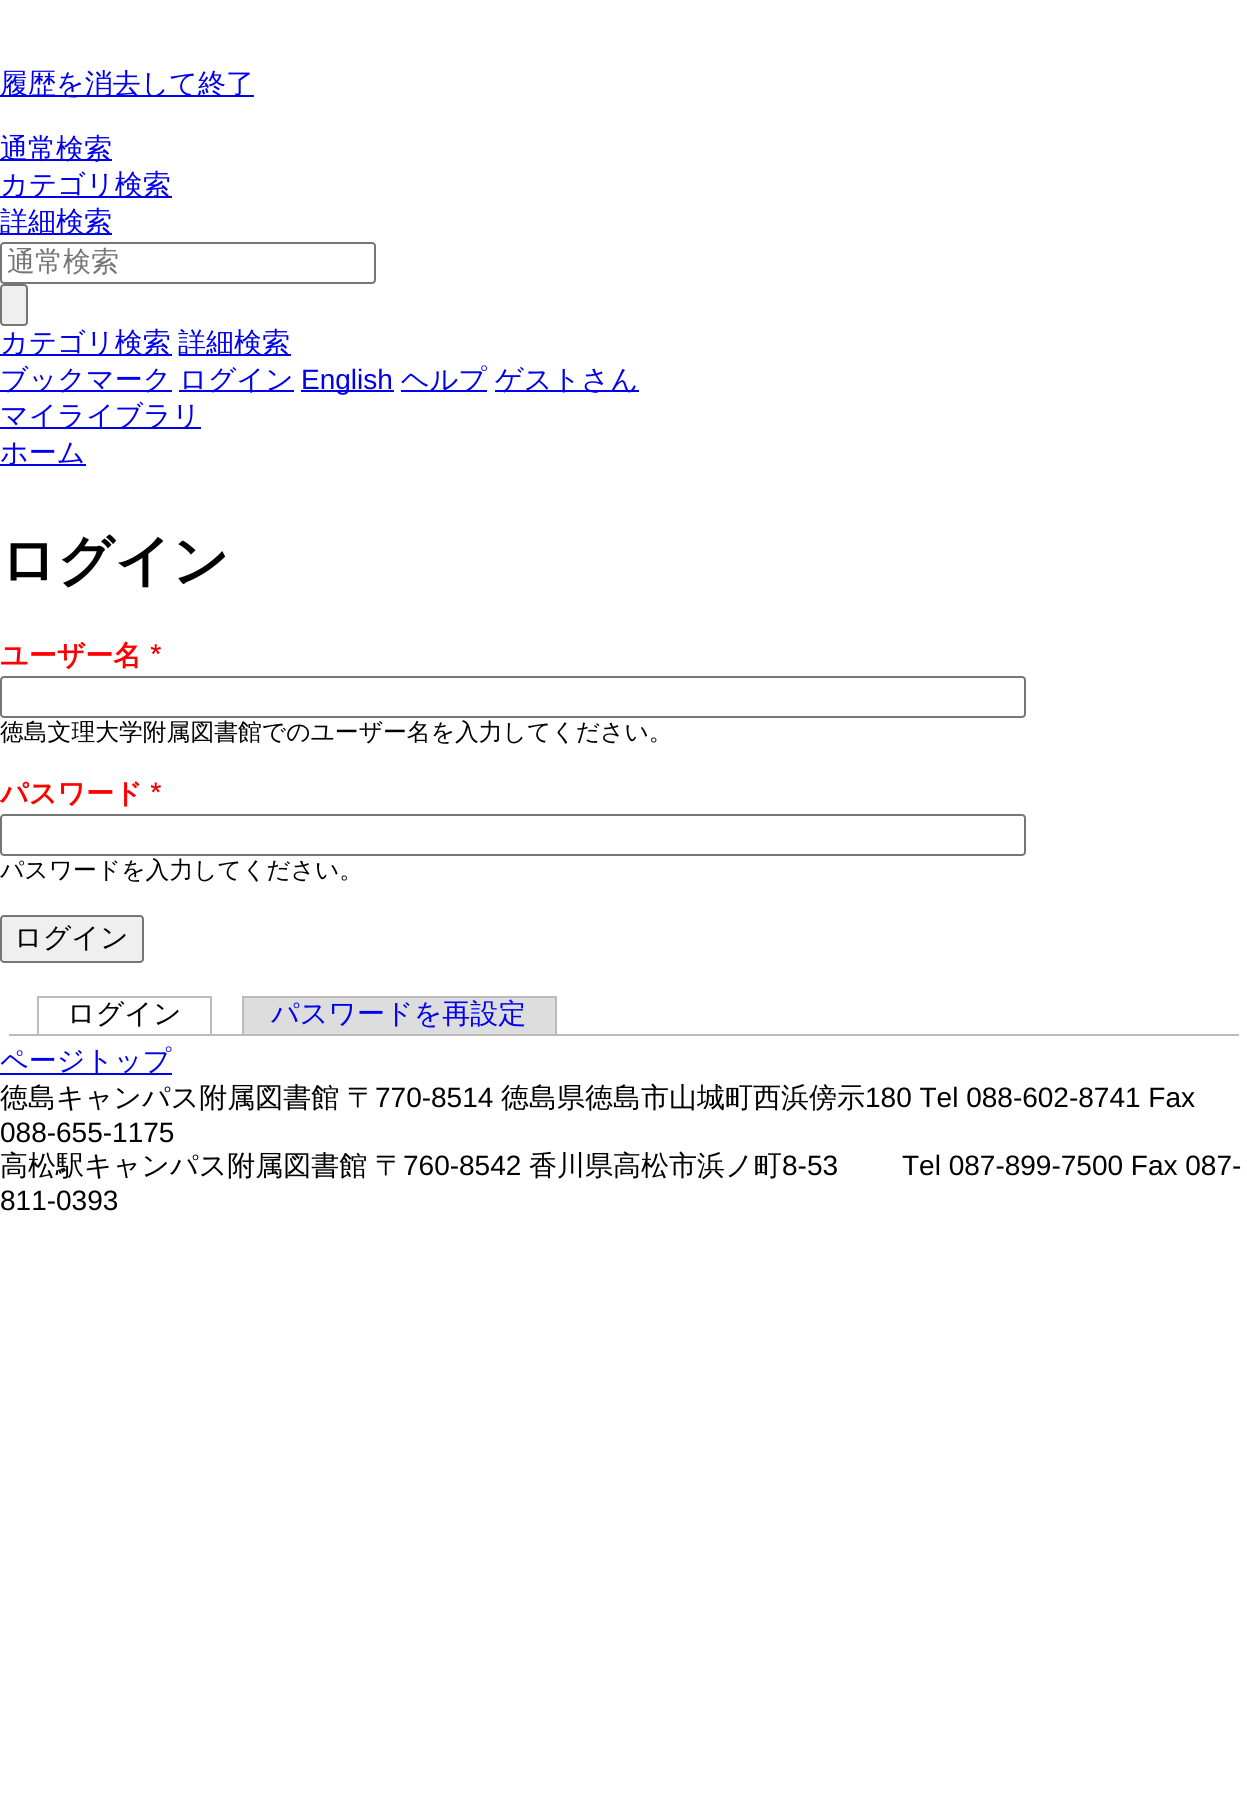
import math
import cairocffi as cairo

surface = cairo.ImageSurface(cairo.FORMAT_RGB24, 1247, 1797)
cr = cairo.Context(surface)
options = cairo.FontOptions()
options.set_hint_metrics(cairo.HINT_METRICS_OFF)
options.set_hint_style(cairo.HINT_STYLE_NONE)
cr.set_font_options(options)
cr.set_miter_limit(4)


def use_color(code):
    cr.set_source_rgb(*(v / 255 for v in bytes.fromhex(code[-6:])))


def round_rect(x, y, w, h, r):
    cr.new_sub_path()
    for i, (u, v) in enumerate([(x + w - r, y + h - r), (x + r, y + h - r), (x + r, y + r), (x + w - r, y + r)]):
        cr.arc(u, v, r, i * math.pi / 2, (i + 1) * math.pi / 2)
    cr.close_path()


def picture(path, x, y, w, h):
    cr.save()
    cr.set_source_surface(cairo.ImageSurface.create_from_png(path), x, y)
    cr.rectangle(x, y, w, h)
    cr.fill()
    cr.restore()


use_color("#ffffff")
cr.paint()
use_color("#0000ee")
cr.rectangle(0, 95, 254, 2)
cr.fill()
cr.select_font_face("WenQuanYi Zen Hei Medium")
cr.set_font_size(28)
cr.move_to(0, 93)
cr.show_text("履歴を消去して終了")
cr.rectangle(0, 159, 112, 2)
cr.fill()
cr.move_to(0, 158)
cr.show_text("通常検索")
cr.rectangle(0, 196, 172, 2)
cr.fill()
cr.move_to(0, 194)
cr.show_text("カテゴリ検索")
cr.rectangle(0, 233, 112, 2)
cr.fill()
cr.move_to(0, 231)
cr.show_text("詳細検索")
round_rect(1, 243, 374, 40, 3)
use_color("#767676")
cr.stroke()
use_color("#757575")
cr.move_to(7, 271)
cr.show_text("通常検索")
use_color("#efefef")
round_rect(1, 285, 26, 40, 3)
cr.fill_preserve()
use_color("#767676")
cr.stroke()
use_color("#0000ee")
cr.rectangle(0, 354, 172, 2)
cr.fill()
cr.move_to(0, 352)
cr.show_text("カテゴリ検索")
cr.rectangle(179, 354, 112, 2)
cr.fill()
cr.move_to(178, 352)
cr.show_text("詳細検索")
cr.rectangle(0, 390, 172, 2)
cr.fill()
cr.move_to(0, 389)
cr.show_text("ブックマーク")
cr.rectangle(179, 390, 115, 2)
cr.fill()
cr.move_to(179, 389)
cr.show_text("ログイン")
cr.rectangle(301, 390, 93, 2)
cr.fill()
cr.select_font_face("Liberation Sans")
cr.move_to(301, 389)
cr.show_text("English")
cr.rectangle(401, 390, 86, 2)
cr.fill()
cr.select_font_face("WenQuanYi Zen Hei Medium")
cr.move_to(401, 389)
cr.show_text("ヘルプ")
cr.rectangle(495, 390, 144, 2)
cr.fill()
cr.move_to(495, 389)
cr.show_text("ゲストさん")
cr.rectangle(0, 427, 201, 2)
cr.fill()
cr.move_to(0, 425)
cr.show_text("マイライブラリ")
cr.rectangle(0, 464, 86, 2)
cr.fill()
cr.move_to(0, 462)
cr.show_text("ホーム")
cr.select_font_face("WenQuanYi Zen Hei", cairo.FONT_SLANT_NORMAL, cairo.FONT_WEIGHT_BOLD)
cr.set_font_size(56)
use_color("#000000")
cr.move_to(0, 580)
cr.show_text("ログイン")
cr.set_font_size(28)
use_color("#ff0000")
cr.move_to(0, 665)
cr.show_text("ユーザー名")
picture("img1.png", 151, 644, 10, 11)
round_rect(1, 677, 1024, 40, 3)
use_color("#767676")
cr.stroke()
cr.select_font_face("WenQuanYi Zen Hei Medium")
cr.set_font_size(23.8)
use_color("#000000")
cr.move_to(0, 740)
cr.show_text("徳島文理大学附属図書館でのユーザー名を入力してください。")
cr.select_font_face("WenQuanYi Zen Hei", cairo.FONT_SLANT_NORMAL, cairo.FONT_WEIGHT_BOLD)
cr.set_font_size(28)
use_color("#ff0000")
cr.move_to(0, 803)
cr.show_text("パスワード")
picture("img2.png", 151, 782, 10, 11)
round_rect(1, 815, 1024, 40, 3)
use_color("#767676")
cr.stroke()
cr.select_font_face("WenQuanYi Zen Hei Medium")
cr.set_font_size(23.8)
use_color("#000000")
cr.move_to(0, 878)
cr.show_text("パスワードを入力してください。")
use_color("#efefef")
round_rect(1, 916, 142, 46, 3)
cr.fill_preserve()
use_color("#767676")
cr.stroke()
cr.set_font_size(28)
use_color("#000000")
cr.move_to(14, 947)
cr.show_text("ログイン")
use_color("#bbbbbb")
cr.rectangle(9, 1034, 1230, 2)
cr.fill()
cr.rectangle(37, 996, 175, 2)
cr.fill()
cr.rectangle(210, 996, 2, 38)
cr.fill()
cr.rectangle(37, 996, 2, 38)
cr.fill()
use_color("#000000")
cr.move_to(67, 1023)
cr.show_text("ログイン")
use_color("#dddddd")
cr.rectangle(244, 998, 311, 36)
cr.fill()
use_color("#bbbbbb")
cr.rectangle(242, 996, 315, 2)
cr.fill()
cr.rectangle(555, 996, 2, 38)
cr.fill()
cr.rectangle(242, 996, 2, 38)
cr.fill()
use_color("#0000ee")
cr.move_to(271, 1023)
cr.show_text("パスワードを再設定")
cr.rectangle(0, 1073, 172, 2)
cr.fill()
cr.move_to(0, 1070)
cr.show_text("ページトップ")
use_color("#000000")
cr.move_to(0, 1107)
cr.show_text("徳島キャンパス附属図書館")
cr.move_to(347, 1107)
cr.show_text("〒")
cr.select_font_face("Liberation Sans")
cr.move_to(375, 1107)
cr.show_text("770-8514")
cr.select_font_face("WenQuanYi Zen Hei Medium")
cr.move_to(501, 1107)
cr.show_text("徳島県徳島市山城町西浜傍示")
cr.select_font_face("Liberation Sans")
cr.move_to(865, 1107)
cr.show_text("180 Tel 088-602-8741 Fax")
cr.move_to(0, 1142)
cr.show_text("088-655-1175")
cr.select_font_face("WenQuanYi Zen Hei Medium")
cr.move_to(0, 1175)
cr.show_text("高松駅キャンパス附属図書館")
cr.move_to(375, 1175)
cr.show_text("〒")
cr.select_font_face("Liberation Sans")
cr.move_to(403, 1175)
cr.show_text("760-8542")
cr.select_font_face("WenQuanYi Zen Hei Medium")
cr.move_to(529, 1175)
cr.show_text("香川県高松市浜ノ町")
cr.select_font_face("Liberation Sans")
cr.move_to(782, 1175)
cr.show_text("8-53")
cr.move_to(902, 1175)
cr.show_text("Tel 087-899-7500 Fax 087-")
cr.move_to(0, 1210)
cr.show_text("811-0393")
surface.write_to_png("result.png")
